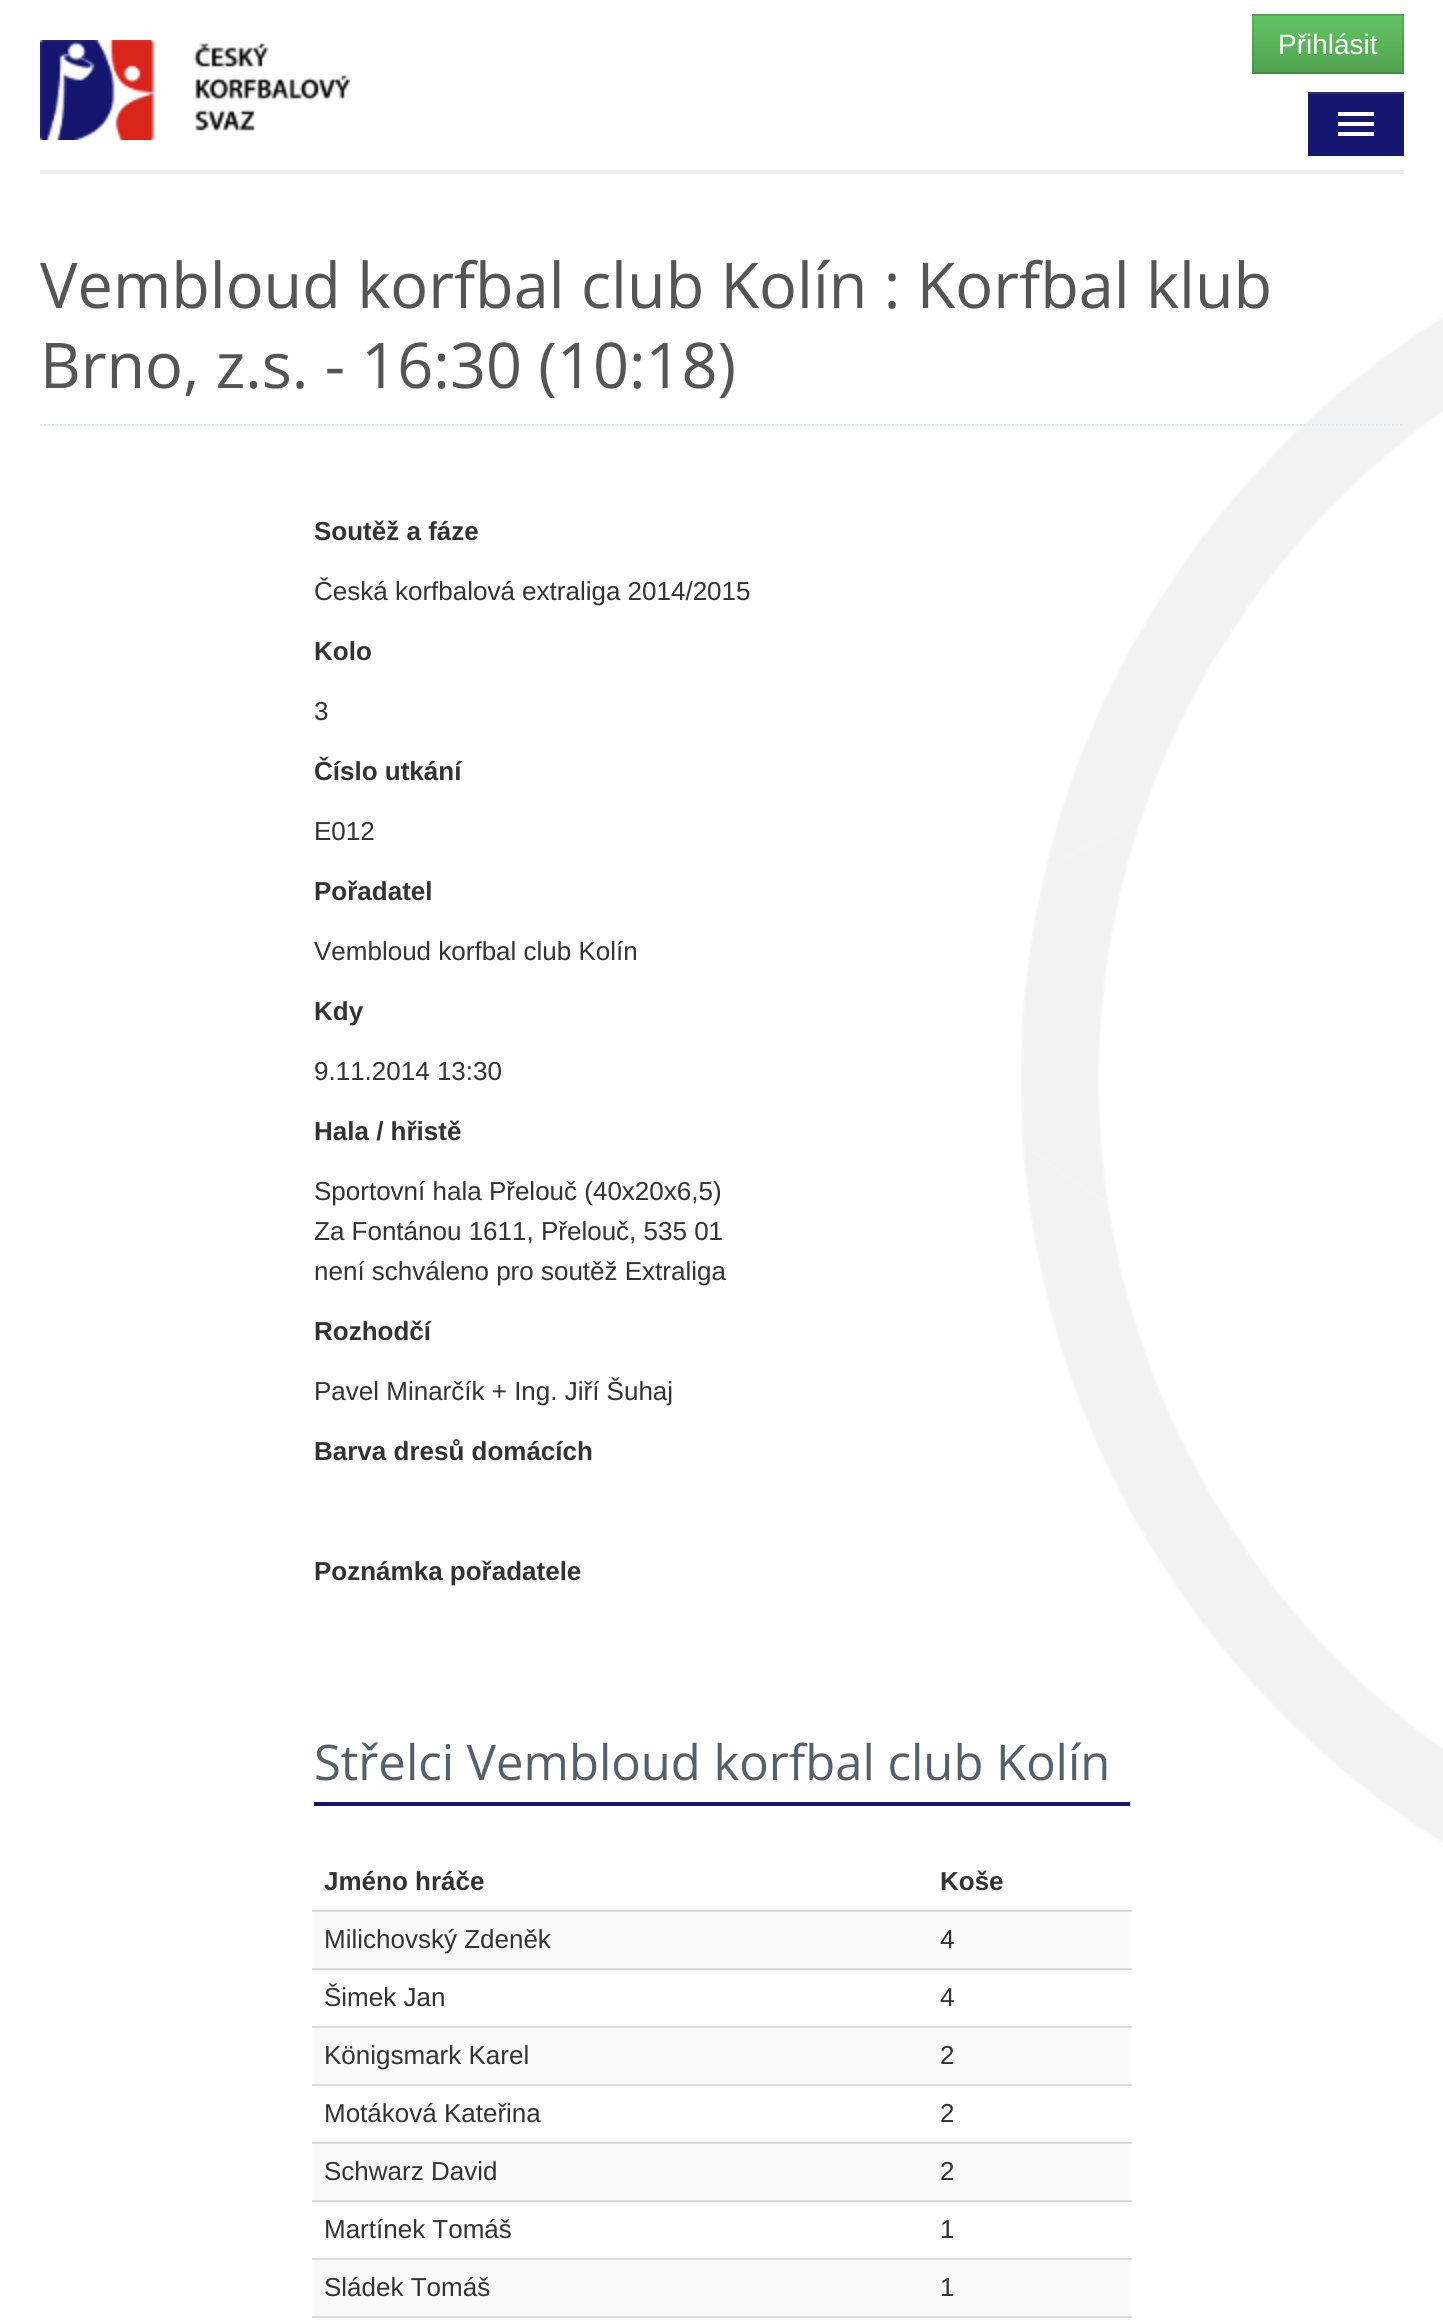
import math
import cairocffi as cairo

surface = cairo.ImageSurface(cairo.FORMAT_RGB24, 1443, 2320)
cr = cairo.Context(surface)
options = cairo.FontOptions()
options.set_hint_metrics(cairo.HINT_METRICS_OFF)
options.set_hint_style(cairo.HINT_STYLE_NONE)
cr.set_font_options(options)
cr.set_miter_limit(4)


def use_color(code):
    cr.set_source_rgb(*(v / 255 for v in bytes.fromhex(code[-6:])))


def picture(path, x, y, w, h):
    cr.save()
    cr.set_source_surface(cairo.ImageSurface.create_from_png(path), x, y)
    cr.rectangle(x, y, w, h)
    cr.fill()
    cr.restore()


use_color("#ffffff")
cr.paint()
picture("img1.png", 1021, 317, 422, 1526)
use_color("#5bb75b")
cr.rectangle(1252, 14, 152, 60)
cr.fill()
gradient = cairo.LinearGradient(1328, 16, 1328, 72)
gradient.add_color_stop_rgba(0, 0.384, 0.769, 0.384, 1)
gradient.add_color_stop_rgba(1, 0.318, 0.639, 0.318, 1)
cr.set_source(gradient)
cr.rectangle(1252, 16, 152, 56)
cr.fill()
use_color("#52a552")
cr.new_path()
cr.move_to(1252, 14)
cr.line_to(1404, 14)
cr.line_to(1402, 16)
cr.line_to(1254, 16)
cr.close_path()
cr.fill()
cr.set_source_rgba(0, 0, 0, 0.1)
cr.new_path()
cr.move_to(1404, 14)
cr.line_to(1404, 74)
cr.line_to(1402, 72)
cr.line_to(1402, 16)
cr.close_path()
cr.fill()
cr.set_source_rgba(0, 0, 0, 0.25)
cr.new_path()
cr.move_to(1404, 74)
cr.line_to(1252, 74)
cr.line_to(1254, 72)
cr.line_to(1402, 72)
cr.close_path()
cr.fill()
cr.set_source_rgba(0, 0, 0, 0.1)
cr.new_path()
cr.move_to(1252, 74)
cr.line_to(1252, 14)
cr.line_to(1254, 16)
cr.line_to(1254, 72)
cr.close_path()
cr.fill()
cr.select_font_face("Liberation Sans")
cr.set_font_size(28)
use_color("#ffffff")
cr.move_to(1278, 54)
cr.show_text("Přihlásit")
use_color("#eeeeee")
cr.rectangle(40, 170, 1364, 4)
cr.fill()
picture("img2.png", 40, 40, 310, 100)
use_color("#14166f")
cr.rectangle(1308, 94, 96, 62)
cr.fill()
use_color("#2c2d7d")
cr.rectangle(1308, 92, 96, 2)
cr.fill()
use_color("#ffffff")
cr.rectangle(1338, 112, 36, 4)
cr.fill()
cr.rectangle(1338, 122, 36, 4)
cr.fill()
cr.rectangle(1338, 132, 36, 4)
cr.fill()
cr.new_path()
cr.move_to(40, 425)
cr.line_to(1404, 425)
use_color("#e4e9f0")
cr.set_dash([2, 2])
cr.stroke()
cr.select_font_face("Open Sans")
cr.set_font_size(63)
use_color("#555555")
cr.move_to(40, 308)
cr.show_text("Vembloud korfbal club Kolín : Korfbal klub")
cr.move_to(40, 388)
cr.show_text("Brno, z.s. - 16:30 (10:18)")
cr.select_font_face("Liberation Sans", cairo.FONT_SLANT_NORMAL, cairo.FONT_WEIGHT_BOLD)
cr.set_font_size(26)
use_color("#333333")
cr.move_to(314, 540)
cr.show_text("Soutěž a fáze")
cr.select_font_face("Liberation Sans")
cr.move_to(314, 600)
cr.show_text("Česká korfbalová extraliga 2014/2015")
cr.select_font_face("Liberation Sans", cairo.FONT_SLANT_NORMAL, cairo.FONT_WEIGHT_BOLD)
cr.move_to(314, 660)
cr.show_text("Kolo")
cr.select_font_face("Liberation Sans")
cr.move_to(314, 720)
cr.show_text("3")
cr.select_font_face("Liberation Sans", cairo.FONT_SLANT_NORMAL, cairo.FONT_WEIGHT_BOLD)
cr.move_to(314, 780)
cr.show_text("Číslo utkání")
cr.select_font_face("Liberation Sans")
cr.move_to(314, 840)
cr.show_text("E012")
cr.select_font_face("Liberation Sans", cairo.FONT_SLANT_NORMAL, cairo.FONT_WEIGHT_BOLD)
cr.move_to(314, 900)
cr.show_text("Pořadatel")
cr.select_font_face("Liberation Sans")
cr.move_to(314, 960)
cr.show_text("Vembloud korfbal club Kolín")
cr.select_font_face("Liberation Sans", cairo.FONT_SLANT_NORMAL, cairo.FONT_WEIGHT_BOLD)
cr.move_to(314, 1020)
cr.show_text("Kdy")
cr.select_font_face("Liberation Sans")
cr.move_to(314, 1080)
cr.show_text("9.11.2014 13:30")
cr.select_font_face("Liberation Sans", cairo.FONT_SLANT_NORMAL, cairo.FONT_WEIGHT_BOLD)
cr.move_to(314, 1140)
cr.show_text("Hala / hřistě")
cr.select_font_face("Liberation Sans")
cr.move_to(314, 1200)
cr.show_text("Sportovní hala Přelouč (40x20x6,5)")
cr.move_to(314, 1240)
cr.show_text("Za Fontánou 1611, Přelouč, 535 01")
cr.move_to(314, 1280)
cr.show_text("není schváleno pro soutěž Extraliga")
cr.select_font_face("Liberation Sans", cairo.FONT_SLANT_NORMAL, cairo.FONT_WEIGHT_BOLD)
cr.move_to(314, 1340)
cr.show_text("Rozhodčí")
cr.select_font_face("Liberation Sans")
cr.move_to(314, 1400)
cr.show_text("Pavel Minarčík + Ing. Jiří Šuhaj")
cr.select_font_face("Liberation Sans", cairo.FONT_SLANT_NORMAL, cairo.FONT_WEIGHT_BOLD)
cr.move_to(314, 1460)
cr.show_text("Barva dresů domácích")
cr.move_to(314, 1580)
cr.show_text("Poznámka pořadatele")
use_color("#14166f")
cr.rectangle(314, 1802, 816, 4)
cr.fill()
cr.select_font_face("Open Sans")
cr.set_font_size(49)
use_color("#585f69")
cr.move_to(314, 1780)
cr.show_text("Střelci Vembloud korfbal club Kolín")
cr.select_font_face("Liberation Sans", cairo.FONT_SLANT_NORMAL, cairo.FONT_WEIGHT_BOLD)
cr.set_font_size(26)
use_color("#333333")
cr.move_to(324, 1890)
cr.show_text("Jméno hráče")
cr.move_to(940, 1890)
cr.show_text("Koše")
use_color("#f9f9f9")
cr.rectangle(314, 1912, 816, 56)
cr.fill()
cr.select_font_face("Liberation Sans")
use_color("#333333")
cr.move_to(324, 1948)
cr.show_text("Milichovský Zdeněk")
use_color("#dddddd")
cr.rectangle(312, 1910, 820, 2)
cr.fill()
use_color("#333333")
cr.move_to(940, 1948)
cr.show_text("4")
cr.move_to(324, 2006)
cr.show_text("Šimek Jan")
use_color("#dddddd")
cr.rectangle(312, 1968, 820, 2)
cr.fill()
use_color("#333333")
cr.move_to(940, 2006)
cr.show_text("4")
use_color("#f9f9f9")
cr.rectangle(314, 2028, 816, 56)
cr.fill()
use_color("#333333")
cr.move_to(324, 2064)
cr.show_text("Königsmark Karel")
use_color("#dddddd")
cr.rectangle(312, 2026, 820, 2)
cr.fill()
use_color("#333333")
cr.move_to(940, 2064)
cr.show_text("2")
cr.move_to(324, 2122)
cr.show_text("Motáková Kateřina")
use_color("#dddddd")
cr.rectangle(312, 2084, 820, 2)
cr.fill()
use_color("#333333")
cr.move_to(940, 2122)
cr.show_text("2")
use_color("#f9f9f9")
cr.rectangle(314, 2144, 816, 56)
cr.fill()
use_color("#333333")
cr.move_to(324, 2180)
cr.show_text("Schwarz David")
use_color("#dddddd")
cr.rectangle(312, 2142, 820, 2)
cr.fill()
use_color("#333333")
cr.move_to(940, 2180)
cr.show_text("2")
cr.move_to(324, 2238)
cr.show_text("Martínek Tomáš")
use_color("#dddddd")
cr.rectangle(312, 2200, 820, 2)
cr.fill()
use_color("#333333")
cr.move_to(940, 2238)
cr.show_text("1")
use_color("#f9f9f9")
cr.rectangle(314, 2260, 816, 56)
cr.fill()
use_color("#333333")
cr.move_to(324, 2296)
cr.show_text("Sládek Tomáš")
use_color("#dddddd")
cr.rectangle(312, 2258, 820, 2)
cr.fill()
use_color("#333333")
cr.move_to(940, 2296)
cr.show_text("1")
use_color("#dddddd")
cr.rectangle(312, 2316, 820, 2)
cr.fill()
surface.write_to_png("result.png")
